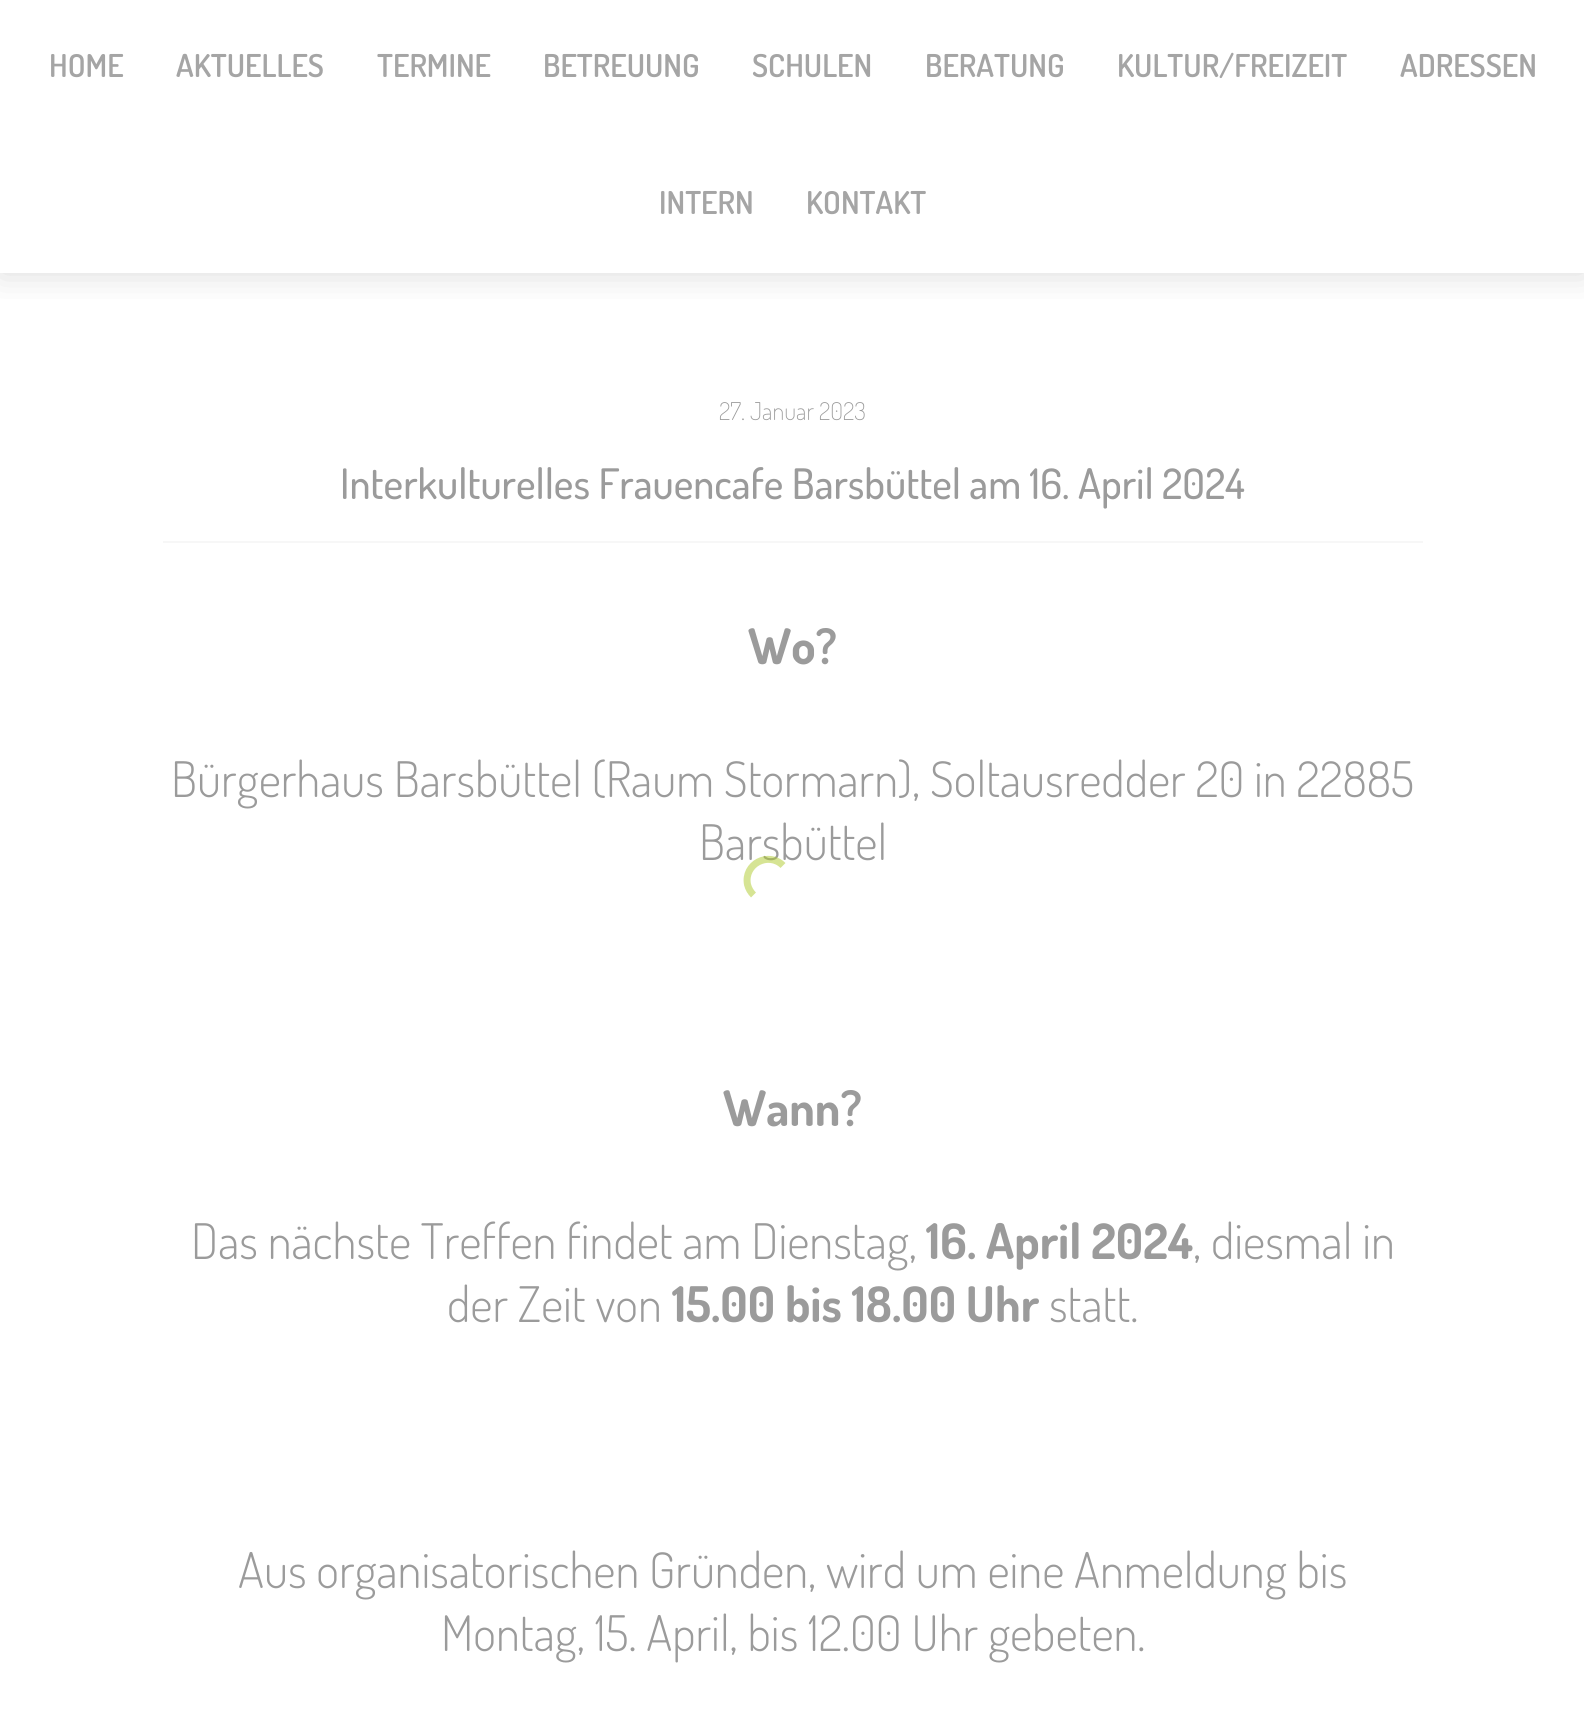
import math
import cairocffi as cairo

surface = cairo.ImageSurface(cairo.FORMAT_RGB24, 1584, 1711)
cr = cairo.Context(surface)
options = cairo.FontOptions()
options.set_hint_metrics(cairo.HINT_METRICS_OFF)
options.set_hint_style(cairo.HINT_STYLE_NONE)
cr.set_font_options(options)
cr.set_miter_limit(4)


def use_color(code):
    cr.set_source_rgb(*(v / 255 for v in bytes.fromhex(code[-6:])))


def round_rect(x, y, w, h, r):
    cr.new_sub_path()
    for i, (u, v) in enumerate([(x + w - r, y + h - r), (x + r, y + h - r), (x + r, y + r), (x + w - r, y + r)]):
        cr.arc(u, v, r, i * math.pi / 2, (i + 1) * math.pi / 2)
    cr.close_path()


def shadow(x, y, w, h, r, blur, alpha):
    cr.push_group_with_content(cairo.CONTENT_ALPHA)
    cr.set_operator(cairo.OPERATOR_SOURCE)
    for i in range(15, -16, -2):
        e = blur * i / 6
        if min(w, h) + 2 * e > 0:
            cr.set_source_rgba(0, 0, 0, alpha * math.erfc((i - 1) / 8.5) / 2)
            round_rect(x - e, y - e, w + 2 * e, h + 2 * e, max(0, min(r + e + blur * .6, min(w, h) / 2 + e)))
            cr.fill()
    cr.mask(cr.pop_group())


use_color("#ffffff")
cr.paint()
cr.save()
cr.rectangle(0, 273, 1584, 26)
cr.clip()
use_color("#828282")
shadow(0, 0, 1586, 273, 0, 17.5, 0.3)
cr.restore()
cr.select_font_face("Dosis SemiBold")
cr.set_font_size(31.5)
use_color("#a5a5a5")
cr.move_to(49, 77)
cr.show_text("HOME")
cr.move_to(176, 77)
cr.show_text("AKTUELLES")
cr.move_to(377, 77)
cr.show_text("TERMINE")
cr.move_to(543, 77)
cr.show_text("BETREUUNG")
cr.move_to(752, 77)
cr.show_text("SCHULEN")
cr.move_to(925, 77)
cr.show_text("BERATUNG")
cr.move_to(1117, 77)
cr.show_text("KULTUR/FREIZEIT")
cr.move_to(1400, 77)
cr.show_text("ADRESSEN")
cr.move_to(659, 214)
cr.show_text("INTERN")
cr.move_to(806, 214)
cr.show_text("KONTAKT")
cr.select_font_face("Dosis ExtraLight")
cr.set_font_size(24.5)
use_color("#9b9b9b")
cr.move_to(719, 420)
cr.show_text("27. Januar 2023")
cr.select_font_face("Dosis Medium")
cr.set_font_size(42)
cr.move_to(340, 499)
cr.show_text("Interkulturelles Frauencafe Barsbüttel am 16. April 2024")
use_color("#f7f7f7")
cr.rectangle(163, 541, 1260, 2)
cr.fill()
cr.select_font_face("Dosis", cairo.FONT_SLANT_NORMAL, cairo.FONT_WEIGHT_BOLD)
cr.set_font_size(49)
use_color("#9b9b9b")
cr.move_to(748, 664)
cr.show_text("Wo?")
cr.select_font_face("Dosis Light")
cr.move_to(171, 797)
cr.show_text("Bürgerhaus Barsbüttel (Raum Stormarn), Soltausredder 20 in 22885")
cr.move_to(699, 860)
cr.show_text("Barsbüttel")
cr.select_font_face("Dosis", cairo.FONT_SLANT_NORMAL, cairo.FONT_WEIGHT_BOLD)
cr.move_to(723, 1126)
cr.show_text("Wann?")
cr.select_font_face("Dosis Light")
cr.move_to(191, 1259)
cr.show_text("Das nächste Treffen findet am Dienstag,")
cr.select_font_face("Dosis", cairo.FONT_SLANT_NORMAL, cairo.FONT_WEIGHT_BOLD)
cr.move_to(926, 1259)
cr.show_text("16. April 2024")
cr.select_font_face("Dosis Light")
cr.move_to(1193, 1259)
cr.show_text(", diesmal in")
cr.move_to(447, 1322)
cr.show_text("der Zeit von")
cr.select_font_face("Dosis", cairo.FONT_SLANT_NORMAL, cairo.FONT_WEIGHT_BOLD)
cr.move_to(672, 1322)
cr.show_text("15.00 bis 18.00 Uhr")
cr.select_font_face("Dosis Light")
cr.move_to(1049, 1322)
cr.show_text("statt.")
cr.move_to(238, 1588)
cr.show_text("Aus organisatorischen Gründen, wird um eine Anmeldung bis")
cr.move_to(441, 1651)
cr.show_text("Montag, 15. April, bis 12.00 Uhr gebeten.")
cr.new_path()
cr.move_to(753.5, 895)
cr.curve_to(750.5, 892, 748.5, 888.5, 747.5, 884.5)
cr.curve_to(743.5, 864, 768.5, 851, 783, 865.5)
cr.set_source_rgba(0.682, 0.792, 0.18, 0.51)
cr.set_line_width(7)
cr.stroke()
surface.write_to_png("result.png")
